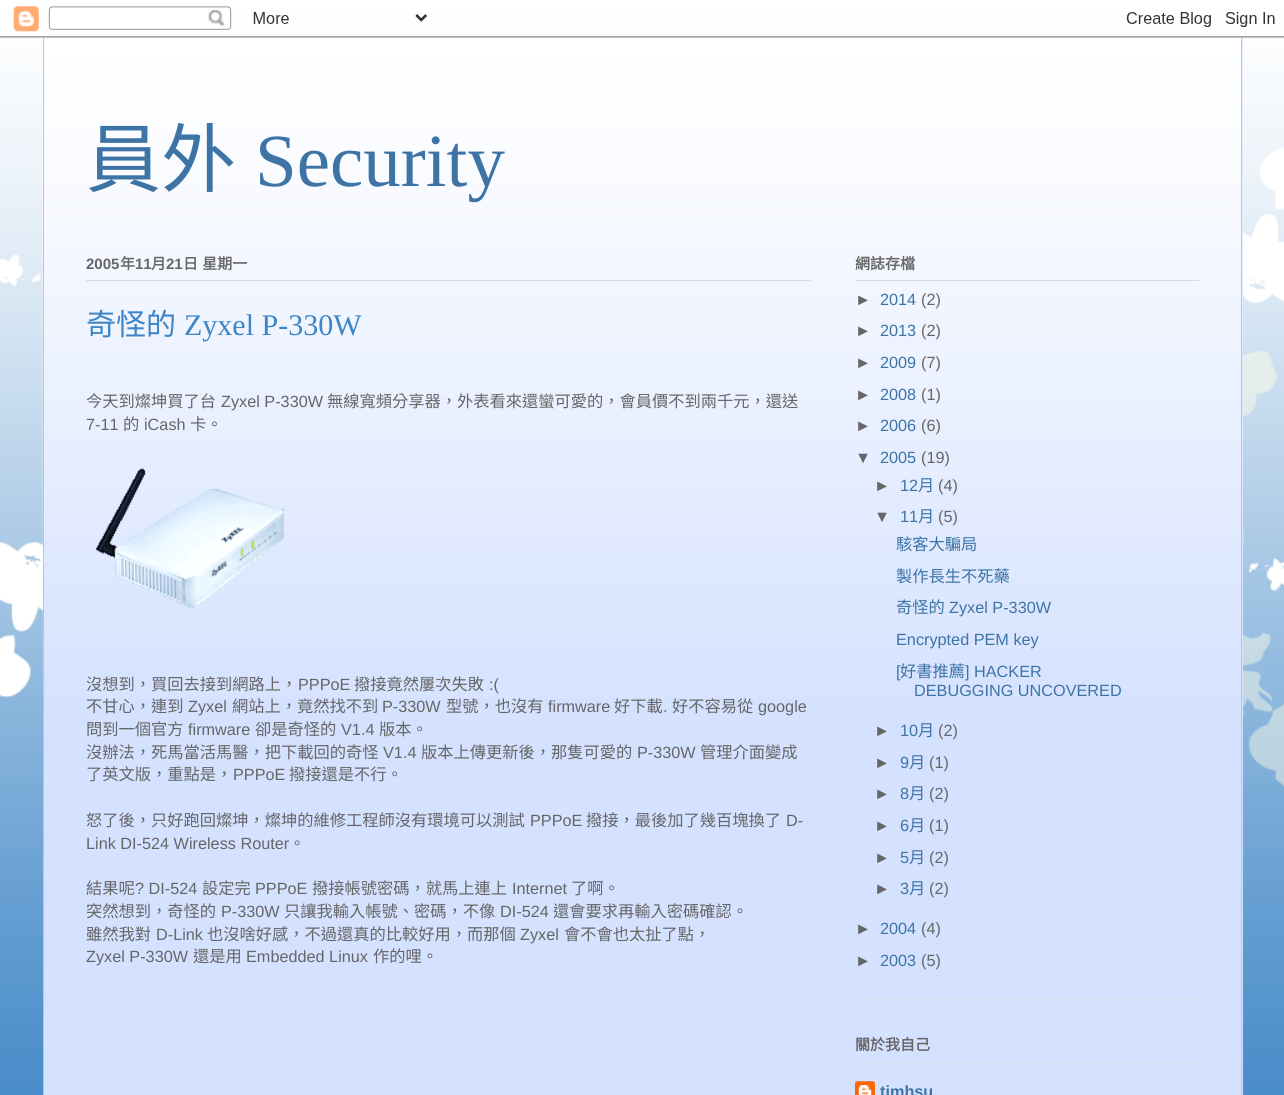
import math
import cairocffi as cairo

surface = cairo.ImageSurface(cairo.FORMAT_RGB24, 1284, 1095)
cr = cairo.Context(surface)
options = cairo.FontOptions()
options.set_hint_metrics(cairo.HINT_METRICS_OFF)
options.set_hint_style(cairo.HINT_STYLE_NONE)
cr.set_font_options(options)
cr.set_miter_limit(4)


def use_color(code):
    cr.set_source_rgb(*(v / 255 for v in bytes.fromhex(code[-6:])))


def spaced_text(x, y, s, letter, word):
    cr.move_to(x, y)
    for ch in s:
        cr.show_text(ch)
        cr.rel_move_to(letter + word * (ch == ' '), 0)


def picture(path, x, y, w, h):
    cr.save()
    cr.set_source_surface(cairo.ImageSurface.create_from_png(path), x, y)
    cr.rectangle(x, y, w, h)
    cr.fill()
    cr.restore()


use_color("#3d85c6")
cr.paint()
picture("img1.png", 0, 0, 1284, 1095)
picture("img2.png", 0, 6, 1284, 32)
use_color("#d4e1ff")
cr.rectangle(44, 38, 1199, 1057)
cr.fill()
picture("img3.png", 42, 38, 1201, 660)
use_color("#bbbbff")
cr.rectangle(1241, 38, 1, 1057)
cr.fill()
cr.rectangle(43, 38, 1, 1057)
cr.fill()
cr.select_font_face("Noto Sans CJK TC")
cr.set_font_size(75)
use_color("#3d74a5")
cr.move_to(86, 186)
cr.show_text("員外")
cr.select_font_face("Liberation Serif")
cr.move_to(255, 186)
cr.show_text("Security")
use_color("#dbdbdb")
cr.rectangle(86, 280, 725, 1)
cr.fill()
cr.select_font_face("Liberation Sans", cairo.FONT_SLANT_NORMAL, cairo.FONT_WEIGHT_BOLD)
cr.set_font_size(15)
use_color("#666666")
cr.move_to(86, 269)
cr.show_text("2005")
cr.select_font_face("Noto Sans CJK TC", cairo.FONT_SLANT_NORMAL, cairo.FONT_WEIGHT_BOLD)
cr.move_to(120, 269)
cr.show_text("年")
cr.select_font_face("Liberation Sans", cairo.FONT_SLANT_NORMAL, cairo.FONT_WEIGHT_BOLD)
cr.move_to(135, 269)
cr.show_text("11")
cr.select_font_face("Noto Sans CJK TC", cairo.FONT_SLANT_NORMAL, cairo.FONT_WEIGHT_BOLD)
cr.move_to(151, 269)
cr.show_text("月")
cr.select_font_face("Liberation Sans", cairo.FONT_SLANT_NORMAL, cairo.FONT_WEIGHT_BOLD)
cr.move_to(166, 269)
cr.show_text("21")
cr.select_font_face("Noto Sans CJK TC", cairo.FONT_SLANT_NORMAL, cairo.FONT_WEIGHT_BOLD)
spaced_text(183, 269, "日 星期一", 0, 1)
cr.select_font_face("Noto Sans CJK TC")
cr.set_font_size(30)
use_color("#3d85c6")
cr.move_to(86, 335)
cr.show_text("奇怪的")
cr.select_font_face("Liberation Serif")
cr.move_to(184, 335)
cr.show_text("Zyxel P-330W")
cr.select_font_face("Noto Sans CJK TC")
cr.set_font_size(16.25)
use_color("#666666")
cr.move_to(86, 407)
cr.show_text("今天到燦坤買了台")
cr.select_font_face("Liberation Sans")
cr.move_to(221, 407)
cr.show_text("Zyxel P-330W")
cr.select_font_face("Noto Sans CJK TC")
cr.move_to(327, 407)
cr.show_text("無線寬頻分享器，外表看來還蠻可愛的，會員價不到兩千元，還送")
cr.select_font_face("Liberation Sans")
cr.move_to(86, 430)
cr.show_text("7-11")
cr.select_font_face("Noto Sans CJK TC")
cr.move_to(123, 430)
cr.show_text("的")
cr.select_font_face("Liberation Sans")
cr.move_to(144, 430)
cr.show_text("iCash")
cr.select_font_face("Noto Sans CJK TC")
cr.move_to(190, 430)
cr.show_text("卡。")
picture("img4.png", 96, 468, 188, 140)
cr.move_to(86, 690)
cr.show_text("沒想到，買回去接到網路上，")
cr.select_font_face("Liberation Sans")
cr.move_to(298, 690)
cr.show_text("PPPoE")
cr.select_font_face("Noto Sans CJK TC")
cr.move_to(354, 690)
cr.show_text("撥接竟然屢次失敗")
cr.select_font_face("Liberation Sans")
cr.move_to(489, 690)
cr.show_text(":(")
cr.select_font_face("Noto Sans CJK TC")
cr.move_to(86, 712)
cr.show_text("不甘心，連到")
cr.select_font_face("Liberation Sans")
cr.move_to(188, 712)
cr.show_text("Zyxel")
cr.select_font_face("Noto Sans CJK TC")
cr.move_to(232, 712)
cr.show_text("網站上，竟然找不到")
cr.select_font_face("Liberation Sans")
cr.move_to(382, 712)
cr.show_text("P-330W")
cr.select_font_face("Noto Sans CJK TC")
cr.move_to(446, 712)
cr.show_text("型號，也沒有")
cr.select_font_face("Liberation Sans")
cr.move_to(548, 712)
cr.show_text("firmware")
cr.select_font_face("Noto Sans CJK TC")
cr.move_to(614, 712)
cr.show_text("好下載")
cr.select_font_face("Liberation Sans")
cr.move_to(663, 712)
cr.show_text(".")
cr.select_font_face("Noto Sans CJK TC")
cr.move_to(672, 712)
cr.show_text("好不容易從")
cr.select_font_face("Liberation Sans")
cr.move_to(758, 712)
cr.show_text("google")
cr.select_font_face("Noto Sans CJK TC")
cr.move_to(86, 735)
cr.show_text("問到一個官方")
cr.select_font_face("Liberation Sans")
cr.move_to(188, 735)
cr.show_text("firmware")
cr.select_font_face("Noto Sans CJK TC")
cr.move_to(255, 735)
cr.show_text("卻是奇怪的")
cr.select_font_face("Liberation Sans")
cr.move_to(341, 735)
cr.show_text("V1.4")
cr.select_font_face("Noto Sans CJK TC")
cr.move_to(379, 735)
cr.show_text("版本。")
cr.move_to(86, 758)
cr.show_text("沒辦法，死馬當活馬醫，把下載回的奇怪")
cr.select_font_face("Liberation Sans")
cr.move_to(383, 758)
cr.show_text("V1.4")
cr.select_font_face("Noto Sans CJK TC")
cr.move_to(421, 758)
cr.show_text("版本上傳更新後，那隻可愛的")
cr.select_font_face("Liberation Sans")
cr.move_to(637, 758)
cr.show_text("P-330W")
cr.select_font_face("Noto Sans CJK TC")
cr.move_to(700, 758)
cr.show_text("管理介面變成")
cr.move_to(86, 780)
cr.show_text("了英文版，重點是，")
cr.select_font_face("Liberation Sans")
cr.move_to(233, 780)
cr.show_text("PPPoE")
cr.select_font_face("Noto Sans CJK TC")
cr.move_to(289, 780)
cr.show_text("撥接還是不行。")
cr.move_to(86, 826)
cr.show_text("怒了後，只好跑回燦坤，燦坤的維修工程師沒有環境可以測試")
cr.select_font_face("Liberation Sans")
cr.move_to(530, 826)
cr.show_text("PPPoE")
cr.select_font_face("Noto Sans CJK TC")
cr.move_to(586, 826)
cr.show_text("撥接，最後加了幾百塊換了")
cr.select_font_face("Liberation Sans")
cr.move_to(786, 826)
cr.show_text("D-")
cr.move_to(86, 849)
cr.show_text("Link DI-524 Wireless Router")
cr.select_font_face("Noto Sans CJK TC")
cr.move_to(289, 849)
cr.show_text("。")
cr.move_to(86, 894)
cr.show_text("結果呢")
cr.select_font_face("Liberation Sans")
cr.move_to(135, 894)
cr.show_text("? DI-524")
cr.select_font_face("Noto Sans CJK TC")
cr.move_to(202, 894)
cr.show_text("設定完")
cr.select_font_face("Liberation Sans")
cr.move_to(255, 894)
cr.show_text("PPPoE")
cr.select_font_face("Noto Sans CJK TC")
cr.move_to(312, 894)
cr.show_text("撥接帳號密碼，就馬上連上")
cr.select_font_face("Liberation Sans")
cr.move_to(512, 894)
cr.show_text("Internet")
cr.select_font_face("Noto Sans CJK TC")
cr.move_to(571, 894)
cr.show_text("了啊。")
cr.move_to(86, 917)
cr.show_text("突然想到，奇怪的")
cr.select_font_face("Liberation Sans")
cr.move_to(221, 917)
cr.show_text("P-330W")
cr.select_font_face("Noto Sans CJK TC")
cr.move_to(284, 917)
cr.show_text("只讓我輸入帳號、密碼，不像")
cr.select_font_face("Liberation Sans")
cr.move_to(500, 917)
cr.show_text("DI-524")
cr.select_font_face("Noto Sans CJK TC")
cr.move_to(553, 917)
cr.show_text("還會要求再輸入密碼確認。")
cr.move_to(86, 940)
cr.show_text("雖然我對")
cr.select_font_face("Liberation Sans")
cr.move_to(156, 940)
cr.show_text("D-Link")
cr.select_font_face("Noto Sans CJK TC")
cr.move_to(207, 940)
cr.show_text("也沒啥好感，不過還真的比較好用，而那個")
cr.select_font_face("Liberation Sans")
cr.move_to(520, 940)
cr.show_text("Zyxel")
cr.select_font_face("Noto Sans CJK TC")
cr.move_to(564, 940)
cr.show_text("會不會也太扯了點，")
cr.select_font_face("Liberation Sans")
cr.move_to(86, 962)
cr.show_text("Zyxel P-330W")
cr.select_font_face("Noto Sans CJK TC")
cr.move_to(193, 962)
cr.show_text("還是用")
cr.select_font_face("Liberation Sans")
cr.move_to(246, 962)
cr.show_text("Embedded Linux")
cr.select_font_face("Noto Sans CJK TC")
cr.move_to(373, 962)
cr.show_text("作的哩。")
use_color("#dbdbdb")
cr.rectangle(855, 998, 344, 1)
cr.fill()
cr.rectangle(855, 280, 344, 1)
cr.fill()
cr.select_font_face("Noto Sans CJK TC", cairo.FONT_SLANT_NORMAL, cairo.FONT_WEIGHT_BOLD)
cr.set_font_size(15)
use_color("#666666")
cr.move_to(855, 269)
cr.show_text("網誌存檔")
cr.select_font_face("Liberation Sans")
cr.set_font_size(16.25)
cr.move_to(855, 305)
cr.show_text("►")
use_color("#3d74a5")
cr.move_to(880, 305)
cr.show_text("2014")
use_color("#666666")
cr.move_to(921, 305)
cr.show_text("(2)")
cr.move_to(855, 336)
cr.show_text("►")
use_color("#3d74a5")
cr.move_to(880, 336)
cr.show_text("2013")
use_color("#666666")
cr.move_to(921, 336)
cr.show_text("(2)")
cr.move_to(855, 368)
cr.show_text("►")
use_color("#3d74a5")
cr.move_to(880, 368)
cr.show_text("2009")
use_color("#666666")
cr.move_to(921, 368)
cr.show_text("(7)")
cr.move_to(855, 400)
cr.show_text("►")
use_color("#3d74a5")
cr.move_to(880, 400)
cr.show_text("2008")
use_color("#666666")
cr.move_to(921, 400)
cr.show_text("(1)")
cr.move_to(855, 431)
cr.show_text("►")
use_color("#3d74a5")
cr.move_to(880, 431)
cr.show_text("2006")
use_color("#666666")
cr.move_to(921, 431)
cr.show_text("(6)")
cr.move_to(855, 463)
cr.show_text("▼")
use_color("#3d74a5")
cr.move_to(880, 463)
cr.show_text("2005")
use_color("#666666")
cr.move_to(921, 463)
cr.show_text("(19)")
cr.move_to(874, 491)
cr.show_text("►")
use_color("#3d74a5")
cr.move_to(900, 491)
cr.show_text("12")
cr.select_font_face("Noto Sans CJK TC")
cr.move_to(918, 491)
cr.show_text("月")
cr.select_font_face("Liberation Sans")
use_color("#666666")
cr.move_to(938, 491)
cr.show_text("(4)")
cr.move_to(874, 522)
cr.show_text("▼")
use_color("#3d74a5")
cr.move_to(900, 522)
cr.show_text("11")
cr.select_font_face("Noto Sans CJK TC")
cr.move_to(918, 522)
cr.show_text("月")
cr.select_font_face("Liberation Sans")
use_color("#666666")
cr.move_to(938, 522)
cr.show_text("(5)")
cr.select_font_face("Noto Sans CJK TC")
use_color("#3d74a5")
cr.move_to(896, 550)
cr.show_text("駭客大騙局")
cr.move_to(896, 582)
cr.show_text("製作長生不死藥")
cr.move_to(896, 613)
cr.show_text("奇怪的")
cr.select_font_face("Liberation Sans")
cr.move_to(949, 613)
cr.show_text("Zyxel P-330W")
cr.move_to(896, 645)
cr.show_text("Encrypted PEM key")
cr.move_to(896, 677)
cr.show_text("[")
cr.select_font_face("Noto Sans CJK TC")
cr.move_to(900, 677)
cr.show_text("好書推薦")
cr.select_font_face("Liberation Sans")
cr.move_to(965, 677)
cr.show_text("] HACKER")
cr.move_to(914, 696)
cr.show_text("DEBUGGING UNCOVERED")
use_color("#666666")
cr.move_to(874, 736)
cr.show_text("►")
use_color("#3d74a5")
cr.move_to(900, 736)
cr.show_text("10")
cr.select_font_face("Noto Sans CJK TC")
cr.move_to(918, 736)
cr.show_text("月")
cr.select_font_face("Liberation Sans")
use_color("#666666")
cr.move_to(938, 736)
cr.show_text("(2)")
cr.move_to(874, 768)
cr.show_text("►")
use_color("#3d74a5")
cr.move_to(900, 768)
cr.show_text("9")
cr.select_font_face("Noto Sans CJK TC")
cr.move_to(909, 768)
cr.show_text("月")
cr.select_font_face("Liberation Sans")
use_color("#666666")
cr.move_to(929, 768)
cr.show_text("(1)")
cr.move_to(874, 799)
cr.show_text("►")
use_color("#3d74a5")
cr.move_to(900, 799)
cr.show_text("8")
cr.select_font_face("Noto Sans CJK TC")
cr.move_to(909, 799)
cr.show_text("月")
cr.select_font_face("Liberation Sans")
use_color("#666666")
cr.move_to(929, 799)
cr.show_text("(2)")
cr.move_to(874, 831)
cr.show_text("►")
use_color("#3d74a5")
cr.move_to(900, 831)
cr.show_text("6")
cr.select_font_face("Noto Sans CJK TC")
cr.move_to(909, 831)
cr.show_text("月")
cr.select_font_face("Liberation Sans")
use_color("#666666")
cr.move_to(929, 831)
cr.show_text("(1)")
cr.move_to(874, 863)
cr.show_text("►")
use_color("#3d74a5")
cr.move_to(900, 863)
cr.show_text("5")
cr.select_font_face("Noto Sans CJK TC")
cr.move_to(909, 863)
cr.show_text("月")
cr.select_font_face("Liberation Sans")
use_color("#666666")
cr.move_to(929, 863)
cr.show_text("(2)")
cr.move_to(874, 894)
cr.show_text("►")
use_color("#3d74a5")
cr.move_to(900, 894)
cr.show_text("3")
cr.select_font_face("Noto Sans CJK TC")
cr.move_to(909, 894)
cr.show_text("月")
cr.select_font_face("Liberation Sans")
use_color("#666666")
cr.move_to(929, 894)
cr.show_text("(2)")
cr.move_to(855, 934)
cr.show_text("►")
use_color("#3d74a5")
cr.move_to(880, 934)
cr.show_text("2004")
use_color("#666666")
cr.move_to(921, 934)
cr.show_text("(4)")
cr.move_to(855, 966)
cr.show_text("►")
use_color("#3d74a5")
cr.move_to(880, 966)
cr.show_text("2003")
use_color("#666666")
cr.move_to(921, 966)
cr.show_text("(5)")
use_color("#dbdbdb")
cr.rectangle(855, 1061, 344, 1)
cr.fill()
cr.select_font_face("Noto Sans CJK TC", cairo.FONT_SLANT_NORMAL, cairo.FONT_WEIGHT_BOLD)
cr.set_font_size(15)
use_color("#666666")
cr.move_to(855, 1050)
cr.show_text("關於我自己")
picture("img5.png", 855, 1081, 20, 14)
cr.select_font_face("Liberation Sans", cairo.FONT_SLANT_NORMAL, cairo.FONT_WEIGHT_BOLD)
cr.set_font_size(16.25)
use_color("#3d74a5")
cr.move_to(880, 1097)
cr.show_text("timhsu")
surface.write_to_png("result.png")
